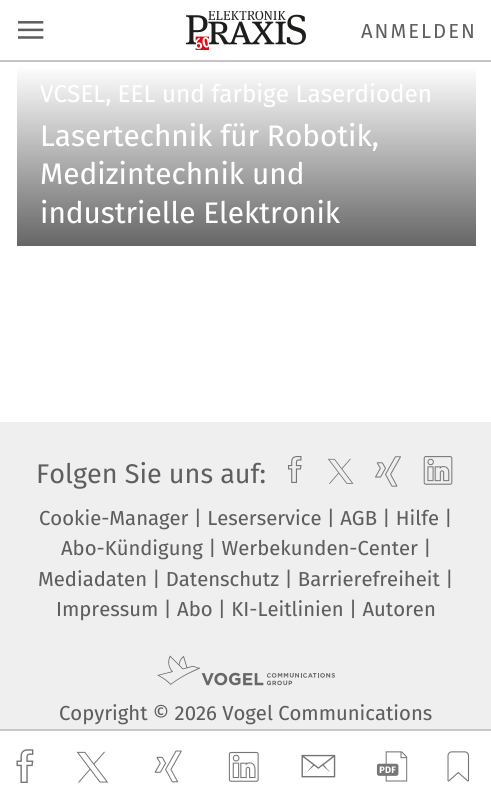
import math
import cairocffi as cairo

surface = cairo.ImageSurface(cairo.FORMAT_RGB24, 491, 803)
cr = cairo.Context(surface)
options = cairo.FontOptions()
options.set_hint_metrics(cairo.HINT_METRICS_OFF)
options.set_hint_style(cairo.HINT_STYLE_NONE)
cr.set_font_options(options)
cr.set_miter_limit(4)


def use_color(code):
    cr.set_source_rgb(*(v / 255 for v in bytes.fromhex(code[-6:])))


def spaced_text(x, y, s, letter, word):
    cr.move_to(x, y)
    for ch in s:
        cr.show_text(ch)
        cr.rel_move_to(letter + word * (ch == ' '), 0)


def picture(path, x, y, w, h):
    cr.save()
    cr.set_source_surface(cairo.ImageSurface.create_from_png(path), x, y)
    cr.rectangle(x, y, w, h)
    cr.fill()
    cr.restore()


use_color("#ffffff")
cr.paint()
use_color("#c6c6c6")
cr.rectangle(0, 60, 491, 2)
cr.fill()
picture("img1.png", 18, 21, 26, 18)
picture("img2.png", 186, 11, 120, 39)
cr.select_font_face("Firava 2")
cr.set_font_size(20.25)
use_color("#5e5e5e")
spaced_text(361, 38, "ANMELDEN", 2, 0)
gradient = cairo.LinearGradient(246, 246, 246, -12)
gradient.add_color_stop_rgba(0, 0.4, 0.4, 0.4, 1)
gradient.add_color_stop_rgba(0.7, 1, 1, 1, 1)
cr.set_source(gradient)
cr.rectangle(17, 68, 459, 178)
cr.fill()
cr.select_font_face("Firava")
cr.set_font_size(24.25)
use_color("#ffffff")
cr.move_to(40, 102)
cr.show_text("VCSEL, EEL und farbige Laserdioden")
cr.set_font_size(29.75)
cr.move_to(40, 146)
cr.show_text("Lasertechnik für Robotik,")
cr.move_to(40, 184)
cr.show_text("Medizintechnik und")
cr.move_to(40, 223)
cr.show_text("industrielle Elektronik")
use_color("#c6c6c6")
cr.rectangle(0, 729, 491, 2)
cr.fill()
picture("img3.png", 16, 749, 18, 34)
picture("img4.png", 76, 751, 33, 32)
picture("img5.png", 154, 750, 28, 33)
picture("img6.png", 228, 751, 31, 31)
picture("img7.png", 301, 754, 35, 24)
picture("img8.png", 376, 751, 32, 31)
picture("img9.png", 447, 751, 23, 31)
use_color("#efefef")
cr.rectangle(0, 422, 491, 307)
cr.fill()
cr.select_font_face("Firava 2")
cr.set_font_size(27)
use_color("#5e5e5e")
cr.move_to(36, 483)
cr.show_text("Folgen Sie uns auf:")
picture("img10.png", 288, 456, 14, 27)
picture("img11.png", 328, 458, 26, 26)
picture("img12.png", 375, 456, 26, 31)
picture("img13.png", 423, 456, 30, 29)
cr.select_font_face("Firava")
cr.set_font_size(20.25)
cr.move_to(39, 525)
cr.show_text("Cookie-Manager | Leserservice | AGB | Hilfe |")
cr.move_to(61, 555)
cr.show_text("Abo-Kündigung | Werbekunden-Center |")
cr.move_to(38, 586)
cr.show_text("Mediadaten | Datenschutz | Barrierefreiheit |")
cr.move_to(56, 616)
cr.show_text("Impressum | Abo | KI-Leitlinien | Autoren")
picture("img14.png", 157, 655, 178, 31)
cr.move_to(59, 720)
cr.show_text("Copyright © 2026 Vogel Communications")
surface.write_to_png("result.png")
